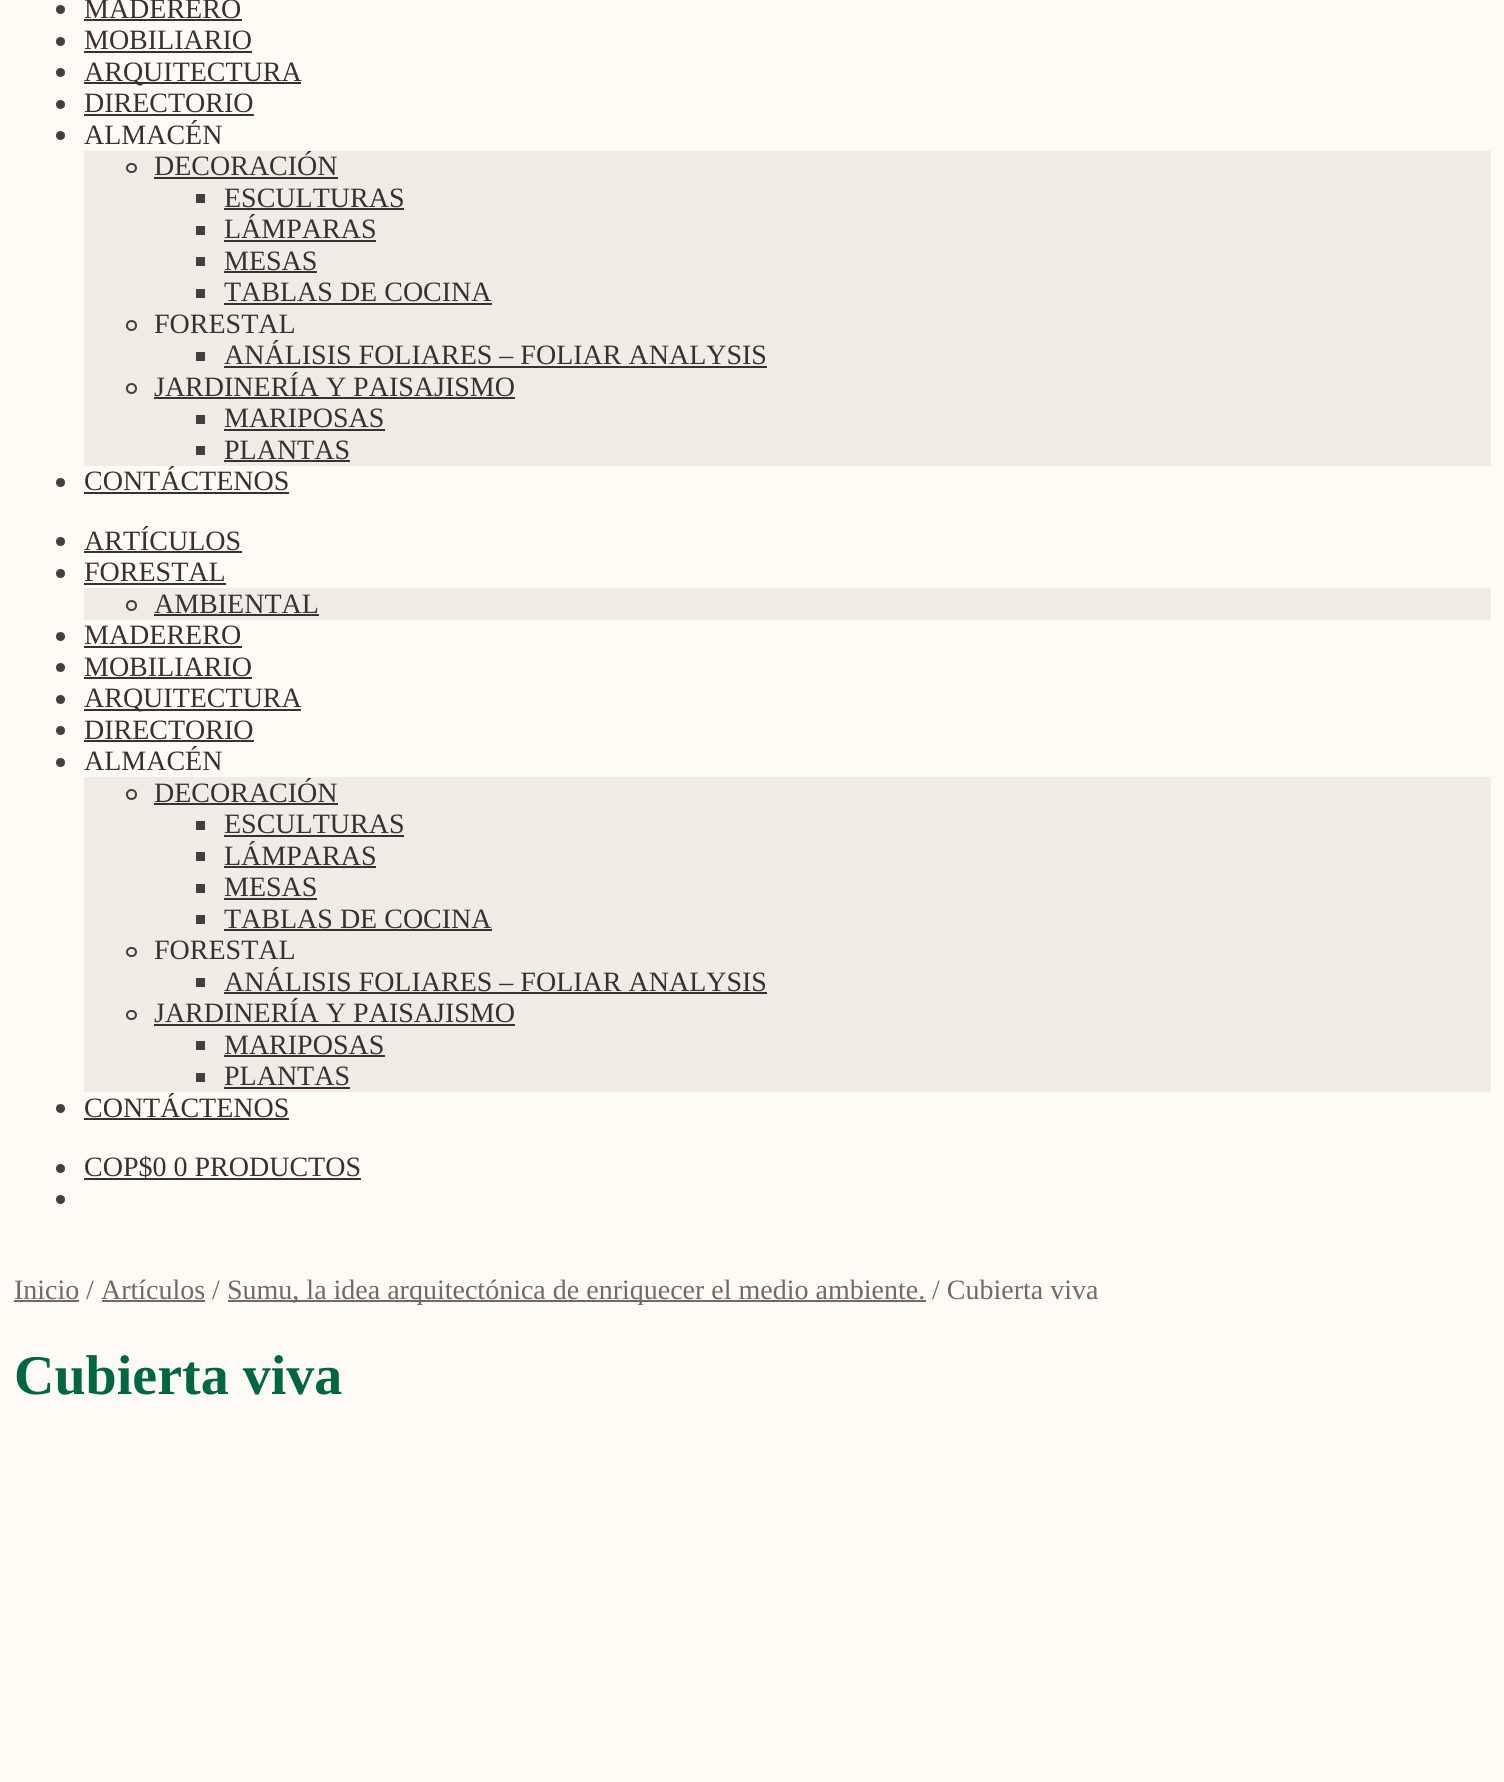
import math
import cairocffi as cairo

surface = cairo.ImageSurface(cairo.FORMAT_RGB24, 1504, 1782)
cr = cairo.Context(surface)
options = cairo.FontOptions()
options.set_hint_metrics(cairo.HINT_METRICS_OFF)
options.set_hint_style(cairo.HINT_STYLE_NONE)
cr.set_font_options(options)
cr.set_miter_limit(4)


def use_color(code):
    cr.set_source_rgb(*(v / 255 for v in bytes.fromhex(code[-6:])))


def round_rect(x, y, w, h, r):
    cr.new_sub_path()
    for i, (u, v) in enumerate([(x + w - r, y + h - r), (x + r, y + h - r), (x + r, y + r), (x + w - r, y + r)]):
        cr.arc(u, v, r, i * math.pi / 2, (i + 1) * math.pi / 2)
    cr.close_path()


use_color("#fffbf4")
cr.paint()
use_color("#404040")
cr.arc(60.5, 9.5, 4.5, 0, 2 * math.pi)
cr.fill()
cr.select_font_face("Liberation Serif")
cr.set_font_size(28)
use_color("#333333")
cr.move_to(84, 18)
cr.show_text("MADERERO")
cr.rectangle(84, 19, 158, 2)
cr.fill()
use_color("#404040")
cr.arc(60.5, 41.5, 4.5, 0, 2 * math.pi)
cr.fill()
use_color("#333333")
cr.move_to(84, 49)
cr.show_text("MOBILIARIO")
cr.rectangle(84, 51, 168, 2)
cr.fill()
use_color("#404040")
cr.arc(60.5, 72.5, 4.5, 0, 2 * math.pi)
cr.fill()
use_color("#333333")
cr.rectangle(84, 82, 217, 2)
cr.fill()
cr.move_to(84, 81)
cr.show_text("ARQUITECTURA")
use_color("#404040")
cr.new_path()
cr.arc(60.5, 104.5, 4.5, 0, 2 * math.pi)
cr.fill()
use_color("#333333")
cr.move_to(84, 112)
cr.show_text("DIRECTORIO")
cr.rectangle(84, 114, 170, 2)
cr.fill()
use_color("#404040")
cr.arc(60.5, 135.5, 4.5, 0, 2 * math.pi)
cr.fill()
use_color("#333333")
cr.move_to(84, 144)
cr.show_text("ALMACÉN")
use_color("#f0ece5")
cr.rectangle(84, 151, 1407, 315)
cr.fill()
round_rect(127, 164, 9, 8, 4)
use_color("#404040")
cr.stroke()
use_color("#333333")
cr.move_to(154, 175)
cr.show_text("DECORACIÓN")
cr.rectangle(154, 177, 184, 2)
cr.fill()
use_color("#404040")
cr.rectangle(196, 194, 9, 9)
cr.fill()
use_color("#333333")
cr.move_to(224, 207)
cr.show_text("ESCULTURAS")
cr.rectangle(224, 208, 180, 2)
cr.fill()
use_color("#404040")
cr.rectangle(196, 226, 9, 9)
cr.fill()
use_color("#333333")
cr.move_to(224, 238)
cr.show_text("LÁMPARAS")
cr.rectangle(224, 240, 152, 2)
cr.fill()
use_color("#404040")
cr.rectangle(196, 257, 9, 9)
cr.fill()
use_color("#333333")
cr.move_to(224, 270)
cr.show_text("MESAS")
cr.rectangle(224, 271, 93, 2)
cr.fill()
use_color("#404040")
cr.rectangle(196, 289, 9, 9)
cr.fill()
use_color("#333333")
cr.move_to(224, 301)
cr.show_text("TABLAS DE COCINA")
cr.rectangle(224, 303, 268, 2)
cr.fill()
cr.arc(131.5, 325.5, 4.5, 0, 2 * math.pi)
use_color("#404040")
cr.stroke()
use_color("#333333")
cr.move_to(154, 333)
cr.show_text("FORESTAL")
use_color("#404040")
cr.rectangle(196, 352, 9, 9)
cr.fill()
use_color("#333333")
cr.move_to(224, 364)
cr.show_text("ANÁLISIS FOLIARES – FOLIAR ANALYSIS")
cr.rectangle(224, 366, 543, 2)
cr.fill()
cr.arc(131.5, 388.5, 4.5, 0, 2 * math.pi)
use_color("#404040")
cr.stroke()
use_color("#333333")
cr.move_to(154, 396)
cr.show_text("JARDINERÍA Y PAISAJISMO")
cr.rectangle(154, 397, 361, 2)
cr.fill()
use_color("#404040")
cr.rectangle(196, 415, 9, 9)
cr.fill()
use_color("#333333")
cr.move_to(224, 427)
cr.show_text("MARIPOSAS")
cr.rectangle(224, 429, 161, 2)
cr.fill()
use_color("#404040")
cr.rectangle(196, 446, 9, 9)
cr.fill()
use_color("#333333")
cr.move_to(224, 459)
cr.show_text("PLANTAS")
cr.rectangle(224, 460, 126, 2)
cr.fill()
use_color("#404040")
cr.arc(60.5, 482.5, 4.5, 0, 2 * math.pi)
cr.fill()
use_color("#333333")
cr.move_to(84, 490)
cr.show_text("CONTÁCTENOS")
cr.rectangle(84, 492, 205, 2)
cr.fill()
use_color("#404040")
cr.arc(60.5, 541.5, 4.5, 0, 2 * math.pi)
cr.fill()
use_color("#333333")
cr.move_to(84, 550)
cr.show_text("ARTÍCULOS")
cr.rectangle(84, 551, 158, 2)
cr.fill()
use_color("#404040")
cr.arc(60.5, 573.5, 4.5, 0, 2 * math.pi)
cr.fill()
use_color("#333333")
cr.move_to(84, 581)
cr.show_text("FORESTAL")
cr.rectangle(84, 583, 142, 2)
cr.fill()
use_color("#f0ece5")
cr.rectangle(84, 588, 1407, 32)
cr.fill()
cr.arc(131.5, 605.5, 4.5, 0, 2 * math.pi)
use_color("#404040")
cr.stroke()
use_color("#333333")
cr.move_to(154, 613)
cr.show_text("AMBIENTAL")
cr.rectangle(154, 614, 165, 2)
cr.fill()
use_color("#404040")
cr.arc(60.5, 636.5, 4.5, 0, 2 * math.pi)
cr.fill()
use_color("#333333")
cr.move_to(84, 644)
cr.show_text("MADERERO")
cr.rectangle(84, 646, 158, 2)
cr.fill()
use_color("#404040")
cr.arc(60.5, 667.5, 4.5, 0, 2 * math.pi)
cr.fill()
use_color("#333333")
cr.move_to(84, 676)
cr.show_text("MOBILIARIO")
cr.rectangle(84, 677, 168, 2)
cr.fill()
use_color("#404040")
cr.arc(60.5, 699.5, 4.5, 0, 2 * math.pi)
cr.fill()
use_color("#333333")
cr.rectangle(84, 709, 217, 2)
cr.fill()
cr.move_to(84, 707)
cr.show_text("ARQUITECTURA")
use_color("#404040")
cr.new_path()
cr.arc(60.5, 730.5, 4.5, 0, 2 * math.pi)
cr.fill()
use_color("#333333")
cr.move_to(84, 739)
cr.show_text("DIRECTORIO")
cr.rectangle(84, 740, 170, 2)
cr.fill()
use_color("#404040")
cr.arc(60.5, 762.5, 4.5, 0, 2 * math.pi)
cr.fill()
use_color("#333333")
cr.move_to(84, 770)
cr.show_text("ALMACÉN")
use_color("#f0ece5")
cr.rectangle(84, 777, 1407, 315)
cr.fill()
cr.arc(131.5, 794.5, 4.5, 0, 2 * math.pi)
use_color("#404040")
cr.stroke()
use_color("#333333")
cr.move_to(154, 802)
cr.show_text("DECORACIÓN")
cr.rectangle(154, 803, 184, 2)
cr.fill()
use_color("#404040")
cr.rectangle(196, 821, 9, 9)
cr.fill()
use_color("#333333")
cr.move_to(224, 833)
cr.show_text("ESCULTURAS")
cr.rectangle(224, 835, 180, 2)
cr.fill()
use_color("#404040")
cr.rectangle(196, 852, 9, 9)
cr.fill()
use_color("#333333")
cr.move_to(224, 865)
cr.show_text("LÁMPARAS")
cr.rectangle(224, 866, 152, 2)
cr.fill()
use_color("#404040")
cr.rectangle(196, 884, 9, 9)
cr.fill()
use_color("#333333")
cr.move_to(224, 896)
cr.show_text("MESAS")
cr.rectangle(224, 898, 93, 2)
cr.fill()
use_color("#404040")
cr.rectangle(196, 915, 9, 9)
cr.fill()
use_color("#333333")
cr.move_to(224, 928)
cr.show_text("TABLAS DE COCINA")
cr.rectangle(224, 929, 268, 2)
cr.fill()
round_rect(127, 948, 9, 8, 4)
use_color("#404040")
cr.stroke()
use_color("#333333")
cr.move_to(154, 959)
cr.show_text("FORESTAL")
use_color("#404040")
cr.rectangle(196, 978, 9, 9)
cr.fill()
use_color("#333333")
cr.move_to(224, 991)
cr.show_text("ANÁLISIS FOLIARES – FOLIAR ANALYSIS")
cr.rectangle(224, 992, 543, 2)
cr.fill()
round_rect(127, 1011, 9, 8, 4)
use_color("#404040")
cr.stroke()
use_color("#333333")
cr.move_to(154, 1022)
cr.show_text("JARDINERÍA Y PAISAJISMO")
cr.rectangle(154, 1024, 361, 2)
cr.fill()
use_color("#404040")
cr.rectangle(196, 1041, 9, 9)
cr.fill()
use_color("#333333")
cr.move_to(224, 1054)
cr.show_text("MARIPOSAS")
cr.rectangle(224, 1055, 161, 2)
cr.fill()
use_color("#404040")
cr.rectangle(196, 1073, 9, 9)
cr.fill()
use_color("#333333")
cr.move_to(224, 1085)
cr.show_text("PLANTAS")
cr.rectangle(224, 1087, 126, 2)
cr.fill()
use_color("#404040")
cr.arc(60.5, 1108.5, 4.5, 0, 2 * math.pi)
cr.fill()
use_color("#333333")
cr.move_to(84, 1117)
cr.show_text("CONTÁCTENOS")
cr.rectangle(84, 1118, 205, 2)
cr.fill()
use_color("#404040")
cr.arc(60.5, 1168.5, 4.5, 0, 2 * math.pi)
cr.fill()
use_color("#333333")
cr.rectangle(84, 1178, 277, 2)
cr.fill()
cr.move_to(84, 1176)
cr.show_text("COP$0 0 PRODUCTOS")
use_color("#404040")
cr.new_path()
cr.arc(60.5, 1199.5, 4.5, 0, 2 * math.pi)
cr.fill()
use_color("#6b6b6b")
cr.move_to(14, 1299)
cr.show_text("Inicio")
cr.rectangle(14, 1300, 65, 2)
cr.fill()
cr.move_to(86, 1299)
cr.show_text("/")
cr.move_to(101, 1299)
cr.show_text("Artículos")
cr.rectangle(102, 1300, 103, 2)
cr.fill()
cr.move_to(212, 1299)
cr.show_text("/")
cr.rectangle(228, 1300, 698, 2)
cr.fill()
cr.move_to(227, 1299)
cr.show_text("Sumu, la idea arquitectónica de enriquecer el medio ambiente.")
cr.move_to(932, 1299)
cr.show_text("/ Cubierta viva")
cr.select_font_face("Liberation Serif", cairo.FONT_SLANT_NORMAL, cairo.FONT_WEIGHT_BOLD)
cr.set_font_size(56)
use_color("#006644")
cr.move_to(14, 1394)
cr.show_text("Cubierta viva")
surface.write_to_png("result.png")
